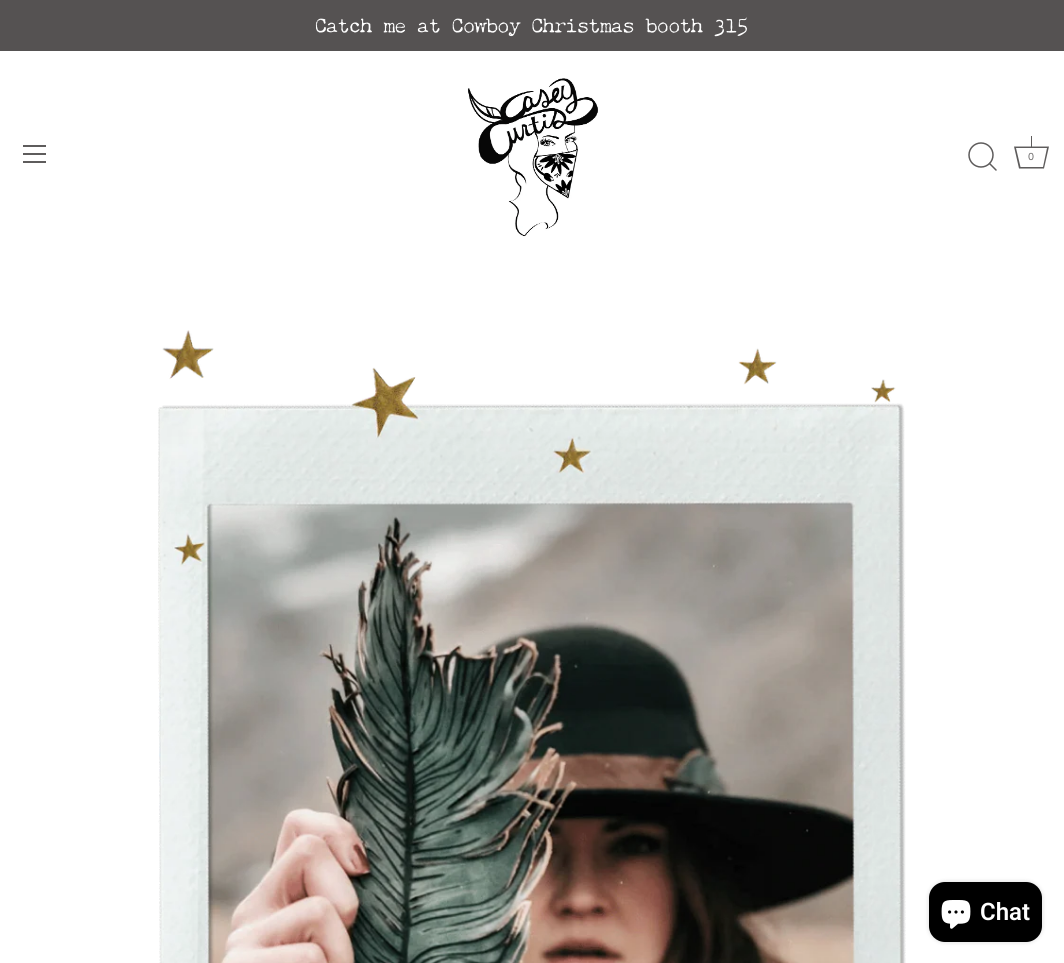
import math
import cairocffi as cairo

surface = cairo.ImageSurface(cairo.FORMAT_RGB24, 1064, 963)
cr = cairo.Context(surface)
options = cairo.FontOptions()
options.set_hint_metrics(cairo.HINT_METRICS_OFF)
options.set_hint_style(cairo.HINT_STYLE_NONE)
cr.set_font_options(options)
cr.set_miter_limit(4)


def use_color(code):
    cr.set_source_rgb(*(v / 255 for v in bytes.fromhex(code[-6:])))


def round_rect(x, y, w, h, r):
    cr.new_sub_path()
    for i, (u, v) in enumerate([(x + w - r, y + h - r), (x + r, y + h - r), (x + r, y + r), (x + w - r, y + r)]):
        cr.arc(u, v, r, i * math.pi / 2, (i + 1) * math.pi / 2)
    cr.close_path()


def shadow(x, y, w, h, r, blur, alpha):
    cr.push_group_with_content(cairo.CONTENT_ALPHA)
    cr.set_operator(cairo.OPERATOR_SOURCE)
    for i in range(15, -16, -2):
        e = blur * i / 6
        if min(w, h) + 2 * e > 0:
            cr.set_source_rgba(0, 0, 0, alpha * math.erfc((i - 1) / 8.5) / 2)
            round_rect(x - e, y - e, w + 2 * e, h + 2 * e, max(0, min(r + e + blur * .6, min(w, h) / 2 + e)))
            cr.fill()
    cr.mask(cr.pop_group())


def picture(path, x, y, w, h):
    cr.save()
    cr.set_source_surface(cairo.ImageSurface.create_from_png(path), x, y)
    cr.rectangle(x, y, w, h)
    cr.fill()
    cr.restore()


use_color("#ffffff")
cr.paint()
use_color("#555252")
cr.rectangle(0, 0, 1064, 51)
cr.fill()
cr.select_font_face("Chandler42 Medium")
cr.set_font_size(20)
use_color("#ffffff")
cr.move_to(315, 32)
cr.show_text("Catch me at Cowboy Christmas booth 315")
use_color("#5e5c5c")
cr.rectangle(23, 145, 23, 2)
cr.fill()
cr.rectangle(23, 153, 23, 2)
cr.fill()
cr.rectangle(23, 161, 23, 2)
cr.fill()
picture("img1.png", 467, 78, 132, 159)
cr.arc(981, 155, 12, 0, 2 * math.pi)
cr.set_line_width(1.5)
cr.stroke()
cr.new_path()
cr.move_to(996, 170)
cr.line_to(989.5, 163.5)
cr.set_line_cap(cairo.LINE_CAP_ROUND)
cr.set_line_join(cairo.LINE_JOIN_ROUND)
cr.stroke()
cr.new_path()
cr.move_to(1047, 148)
cr.line_to(1043, 167)
cr.line_to(1020.5, 167)
cr.line_to(1016, 148)
cr.line_to(1047, 148)
cr.move_to(1049, 146.5)
cr.line_to(1014, 146.5)
cr.line_to(1019, 168.5)
cr.line_to(1044, 168.5)
cr.close_path()
cr.fill()
cr.rectangle(1031, 136, 1, 11)
cr.fill()
cr.select_font_face("Nunito Sans")
cr.set_font_size(10)
cr.move_to(1028, 160)
cr.show_text("0")
picture("img2.png", 158, 330, 748, 633)
use_color("#000000")
shadow(929, 882, 113, 60, 16, 2.5, 0.15)
use_color("#000000")
round_rect(929, 882, 113, 60, 16)
cr.fill()
picture("img3.png", 941, 900, 30, 29)
cr.select_font_face("Roboto SemiBold")
cr.set_font_size(24)
use_color("#ffffff")
cr.move_to(980, 920)
cr.show_text("Chat")
surface.write_to_png("result.png")
